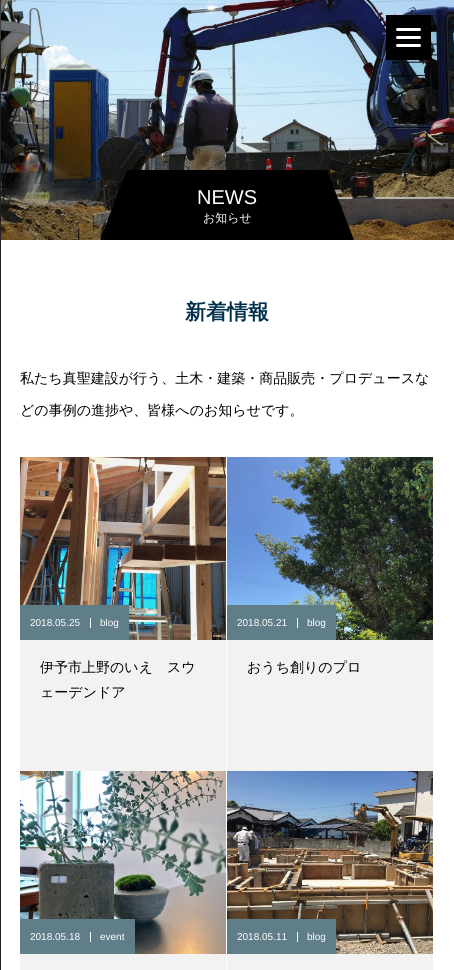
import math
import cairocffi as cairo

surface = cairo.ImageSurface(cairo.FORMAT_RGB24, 454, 970)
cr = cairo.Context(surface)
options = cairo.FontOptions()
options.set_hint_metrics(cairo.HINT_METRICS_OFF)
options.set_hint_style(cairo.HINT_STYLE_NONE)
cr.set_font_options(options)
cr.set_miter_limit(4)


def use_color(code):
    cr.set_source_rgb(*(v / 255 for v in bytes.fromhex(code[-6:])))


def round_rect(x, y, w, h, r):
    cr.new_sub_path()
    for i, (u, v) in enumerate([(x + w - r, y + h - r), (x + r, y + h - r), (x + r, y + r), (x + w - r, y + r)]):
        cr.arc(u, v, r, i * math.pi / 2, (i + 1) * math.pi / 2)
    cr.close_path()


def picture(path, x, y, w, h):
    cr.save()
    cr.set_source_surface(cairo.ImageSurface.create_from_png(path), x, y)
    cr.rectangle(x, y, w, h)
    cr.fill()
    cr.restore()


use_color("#ffffff")
cr.paint()
use_color("#212121")
cr.rectangle(0, 40, 1, 930)
cr.fill()
use_color("#3f3f3f")
cr.rectangle(0, 0, 1, 40)
cr.fill()
use_color("#212121")
cr.rectangle(0, 0, 1, 1)
cr.fill()
cr.rectangle(0, 39, 1, 1)
cr.fill()
picture("img1.png", 1, 0, 453, 240)
use_color("#000000")
cr.rectangle(386, 15, 45, 45)
cr.fill()
use_color("#ffffff")
round_rect(396, 36, 25, 3, 1.5)
cr.fill()
round_rect(396, 28, 25, 3, 1.5)
cr.fill()
round_rect(396, 44, 25, 3, 1.5)
cr.fill()
cr.save()
cr.rectangle(0, 0, 454, 240)
cr.clip()
use_color("#000000")
cr.new_path()
cr.move_to(381, 310)
cr.line_to(73, 310)
cr.line_to(127, 170)
cr.line_to(327, 170)
cr.close_path()
cr.fill()
cr.restore()
cr.select_font_face("Liberation Sans")
cr.set_font_size(20)
cr.move_to(197, 204)
cr.show_text("NEWS")
cr.select_font_face("WenQuanYi Zen Hei Medium")
cr.set_font_size(12)
cr.move_to(203, 222)
cr.show_text("お知らせ")
cr.select_font_face("WenQuanYi Zen Hei", cairo.FONT_SLANT_NORMAL, cairo.FONT_WEIGHT_BOLD)
cr.set_font_size(21)
use_color("#00304b")
cr.move_to(185, 319)
cr.show_text("新着情報")
cr.select_font_face("WenQuanYi Zen Hei Medium")
cr.set_font_size(14)
use_color("#000000")
cr.move_to(20, 383)
cr.show_text("私たち真聖建設が行う、土木・建築・商品販売・プロデュースな")
cr.move_to(20, 415)
cr.show_text("どの事例の進捗や、皆様へのお知らせです。")
picture("img2.png", 20, 457, 206, 183)
use_color("#607e88")
cr.rectangle(20, 605, 109, 35)
cr.fill()
cr.select_font_face("Liberation Sans")
cr.set_font_size(10)
use_color("#ffffff")
cr.move_to(30, 626)
cr.show_text("2018.05.25")
cr.rectangle(90, 618, 1, 10)
cr.fill()
cr.move_to(100, 626)
cr.show_text("blog")
use_color("#f2f2f2")
cr.rectangle(20, 640, 206, 131)
cr.fill()
cr.select_font_face("WenQuanYi Zen Hei Medium")
cr.set_font_size(14)
use_color("#000000")
cr.move_to(40, 672)
cr.show_text("伊予市上野のいえ　スウ")
cr.move_to(40, 697)
cr.show_text("ェーデンドア")
picture("img3.png", 227, 457, 206, 183)
use_color("#607e88")
cr.rectangle(227, 605, 109, 35)
cr.fill()
cr.select_font_face("Liberation Sans")
cr.set_font_size(10)
use_color("#ffffff")
cr.move_to(237, 626)
cr.show_text("2018.05.21")
cr.rectangle(297, 618, 1, 10)
cr.fill()
cr.move_to(307, 626)
cr.show_text("blog")
use_color("#f2f2f2")
cr.rectangle(227, 640, 206, 131)
cr.fill()
cr.select_font_face("WenQuanYi Zen Hei Medium")
cr.set_font_size(14)
use_color("#000000")
cr.move_to(247, 672)
cr.show_text("おうち創りのプロ")
picture("img4.png", 20, 771, 206, 183)
use_color("#f2f2f2")
cr.rectangle(20, 954, 206, 16)
cr.fill()
use_color("#607e88")
cr.rectangle(20, 919, 115, 35)
cr.fill()
cr.select_font_face("Liberation Sans")
cr.set_font_size(10)
use_color("#ffffff")
cr.move_to(30, 940)
cr.show_text("2018.05.18")
cr.rectangle(90, 932, 1, 10)
cr.fill()
cr.move_to(100, 940)
cr.show_text("event")
picture("img5.png", 227, 771, 206, 183)
use_color("#f2f2f2")
cr.rectangle(227, 954, 206, 16)
cr.fill()
use_color("#607e88")
cr.rectangle(227, 919, 109, 35)
cr.fill()
use_color("#ffffff")
cr.move_to(237, 940)
cr.show_text("2018.05.11")
cr.rectangle(297, 932, 1, 10)
cr.fill()
cr.move_to(307, 940)
cr.show_text("blog")
surface.write_to_png("result.png")
